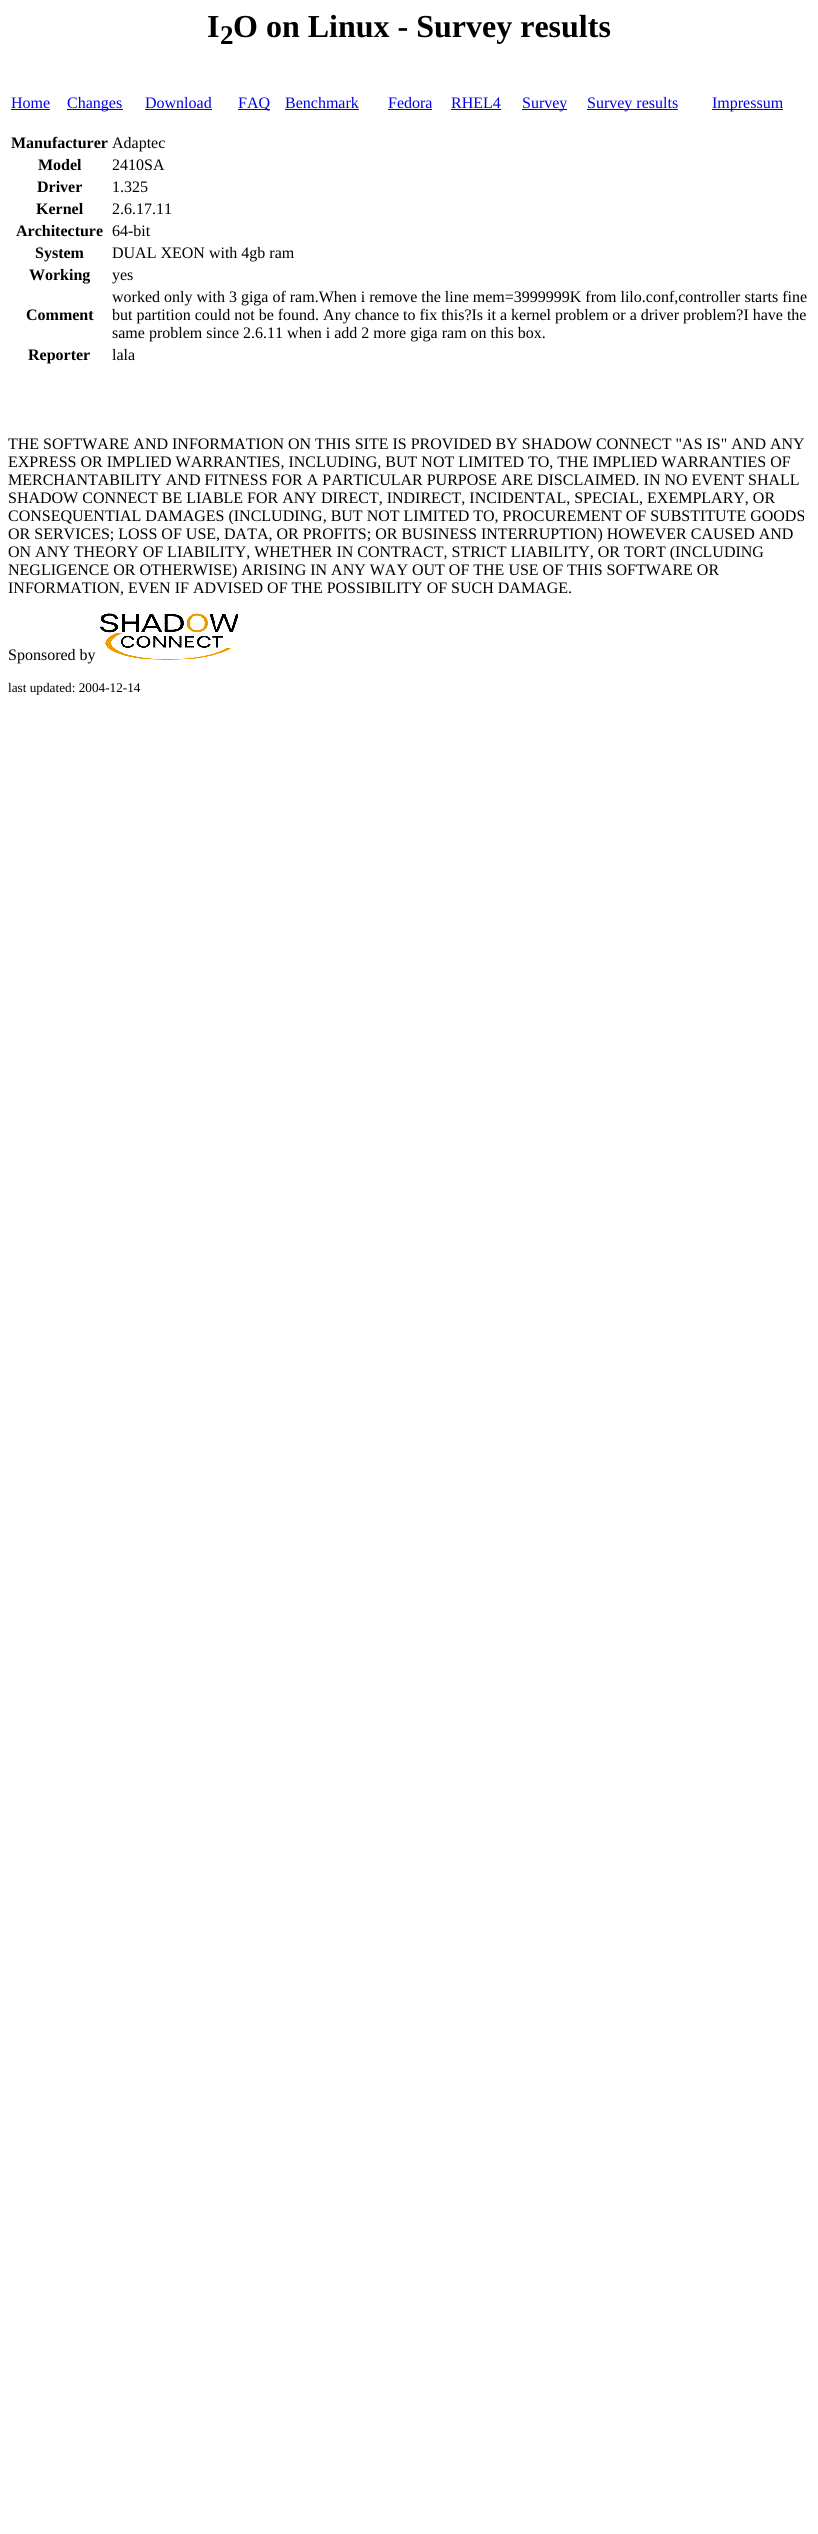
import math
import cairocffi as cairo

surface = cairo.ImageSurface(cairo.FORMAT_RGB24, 818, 2534)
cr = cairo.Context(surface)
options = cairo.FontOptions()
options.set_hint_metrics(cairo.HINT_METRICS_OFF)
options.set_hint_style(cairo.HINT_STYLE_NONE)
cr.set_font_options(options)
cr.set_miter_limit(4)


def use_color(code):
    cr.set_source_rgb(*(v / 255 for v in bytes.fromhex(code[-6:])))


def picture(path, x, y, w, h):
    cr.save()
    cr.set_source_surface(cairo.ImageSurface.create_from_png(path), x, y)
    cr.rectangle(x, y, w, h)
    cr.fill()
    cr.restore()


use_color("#ffffff")
cr.paint()
cr.select_font_face("Liberation Serif", cairo.FONT_SLANT_NORMAL, cairo.FONT_WEIGHT_BOLD)
cr.set_font_size(32)
use_color("#000000")
cr.move_to(207, 37)
cr.show_text("I")
cr.set_font_size(27)
cr.move_to(220, 44)
cr.show_text("2")
cr.set_font_size(32)
cr.move_to(233, 37)
cr.show_text("O on Linux - Survey results")
cr.select_font_face("Liberation Serif")
cr.set_font_size(16)
use_color("#0000ee")
cr.move_to(11, 108)
cr.show_text("Home")
cr.rectangle(11, 109, 39, 1)
cr.fill()
cr.rectangle(67, 109, 56, 1)
cr.fill()
cr.move_to(67, 108)
cr.show_text("Changes")
cr.move_to(145, 108)
cr.show_text("Download")
cr.rectangle(145, 109, 67, 1)
cr.fill()
cr.rectangle(238, 109, 32, 1)
cr.fill()
cr.move_to(238, 108)
cr.show_text("FAQ")
cr.move_to(285, 108)
cr.show_text("Benchmark")
cr.rectangle(285, 109, 74, 1)
cr.fill()
cr.move_to(388, 108)
cr.show_text("Fedora")
cr.rectangle(388, 109, 44, 1)
cr.fill()
cr.move_to(451, 108)
cr.show_text("RHEL4")
cr.rectangle(451, 109, 50, 1)
cr.fill()
cr.rectangle(522, 109, 45, 1)
cr.fill()
cr.move_to(522, 108)
cr.show_text("Survey")
cr.rectangle(587, 109, 91, 1)
cr.fill()
cr.move_to(587, 108)
cr.show_text("Survey results")
cr.rectangle(712, 109, 71, 1)
cr.fill()
cr.move_to(712, 108)
cr.show_text("Impressum")
cr.select_font_face("Liberation Serif", cairo.FONT_SLANT_NORMAL, cairo.FONT_WEIGHT_BOLD)
use_color("#000000")
cr.move_to(11, 148)
cr.show_text("Manufacturer")
cr.select_font_face("Liberation Serif")
cr.move_to(112, 148)
cr.show_text("Adaptec")
cr.select_font_face("Liberation Serif", cairo.FONT_SLANT_NORMAL, cairo.FONT_WEIGHT_BOLD)
cr.move_to(38, 170)
cr.show_text("Model")
cr.select_font_face("Liberation Serif")
cr.move_to(112, 170)
cr.show_text("2410SA")
cr.select_font_face("Liberation Serif", cairo.FONT_SLANT_NORMAL, cairo.FONT_WEIGHT_BOLD)
cr.move_to(37, 192)
cr.show_text("Driver")
cr.select_font_face("Liberation Serif")
cr.move_to(112, 192)
cr.show_text("1.325")
cr.select_font_face("Liberation Serif", cairo.FONT_SLANT_NORMAL, cairo.FONT_WEIGHT_BOLD)
cr.move_to(36, 214)
cr.show_text("Kernel")
cr.select_font_face("Liberation Serif")
cr.move_to(112, 214)
cr.show_text("2.6.17.11")
cr.select_font_face("Liberation Serif", cairo.FONT_SLANT_NORMAL, cairo.FONT_WEIGHT_BOLD)
cr.move_to(16, 236)
cr.show_text("Architecture")
cr.select_font_face("Liberation Serif")
cr.move_to(112, 236)
cr.show_text("64-bit")
cr.select_font_face("Liberation Serif", cairo.FONT_SLANT_NORMAL, cairo.FONT_WEIGHT_BOLD)
cr.move_to(35, 258)
cr.show_text("System")
cr.select_font_face("Liberation Serif")
cr.move_to(112, 258)
cr.show_text("DUAL XEON with 4gb ram")
cr.select_font_face("Liberation Serif", cairo.FONT_SLANT_NORMAL, cairo.FONT_WEIGHT_BOLD)
cr.move_to(29, 280)
cr.show_text("Working")
cr.select_font_face("Liberation Serif")
cr.move_to(112, 280)
cr.show_text("yes")
cr.select_font_face("Liberation Serif", cairo.FONT_SLANT_NORMAL, cairo.FONT_WEIGHT_BOLD)
cr.move_to(26, 320)
cr.show_text("Comment")
cr.select_font_face("Liberation Serif")
cr.move_to(112, 302)
cr.show_text("worked only with 3 giga of ram.When i remove the line mem=3999999K from lilo.conf,controller starts fine")
cr.move_to(112, 320)
cr.show_text("but partition could not be found. Any chance to fix this?Is it a kernel problem or a driver problem?I have the")
cr.move_to(112, 338)
cr.show_text("same problem since 2.6.11 when i add 2 more giga ram on this box.")
cr.select_font_face("Liberation Serif", cairo.FONT_SLANT_NORMAL, cairo.FONT_WEIGHT_BOLD)
cr.move_to(28, 360)
cr.show_text("Reporter")
cr.select_font_face("Liberation Serif")
cr.move_to(112, 360)
cr.show_text("lala")
cr.move_to(8, 449)
cr.show_text("THE SOFTWARE AND INFORMATION ON THIS SITE IS PROVIDED BY SHADOW CONNECT \"AS IS\" AND ANY")
cr.move_to(8, 467)
cr.show_text("EXPRESS OR IMPLIED WARRANTIES, INCLUDING, BUT NOT LIMITED TO, THE IMPLIED WARRANTIES OF")
cr.move_to(8, 485)
cr.show_text("MERCHANTABILITY AND FITNESS FOR A PARTICULAR PURPOSE ARE DISCLAIMED. IN NO EVENT SHALL")
cr.move_to(8, 503)
cr.show_text("SHADOW CONNECT BE LIABLE FOR ANY DIRECT, INDIRECT, INCIDENTAL, SPECIAL, EXEMPLARY, OR")
cr.move_to(8, 521)
cr.show_text("CONSEQUENTIAL DAMAGES (INCLUDING, BUT NOT LIMITED TO, PROCUREMENT OF SUBSTITUTE GOODS")
cr.move_to(8, 539)
cr.show_text("OR SERVICES; LOSS OF USE, DATA, OR PROFITS; OR BUSINESS INTERRUPTION) HOWEVER CAUSED AND")
cr.move_to(8, 557)
cr.show_text("ON ANY THEORY OF LIABILITY, WHETHER IN CONTRACT, STRICT LIABILITY, OR TORT (INCLUDING")
cr.move_to(8, 575)
cr.show_text("NEGLIGENCE OR OTHERWISE) ARISING IN ANY WAY OUT OF THE USE OF THIS SOFTWARE OR")
cr.move_to(8, 593)
cr.show_text("INFORMATION, EVEN IF ADVISED OF THE POSSIBILITY OF SUCH DAMAGE.")
cr.move_to(8, 660)
cr.show_text("Sponsored by")
picture("img1.png", 100, 613, 138, 47)
cr.set_font_size(13.25)
cr.move_to(8, 692)
cr.show_text("last updated: 2004-12-14")
surface.write_to_png("result.png")
